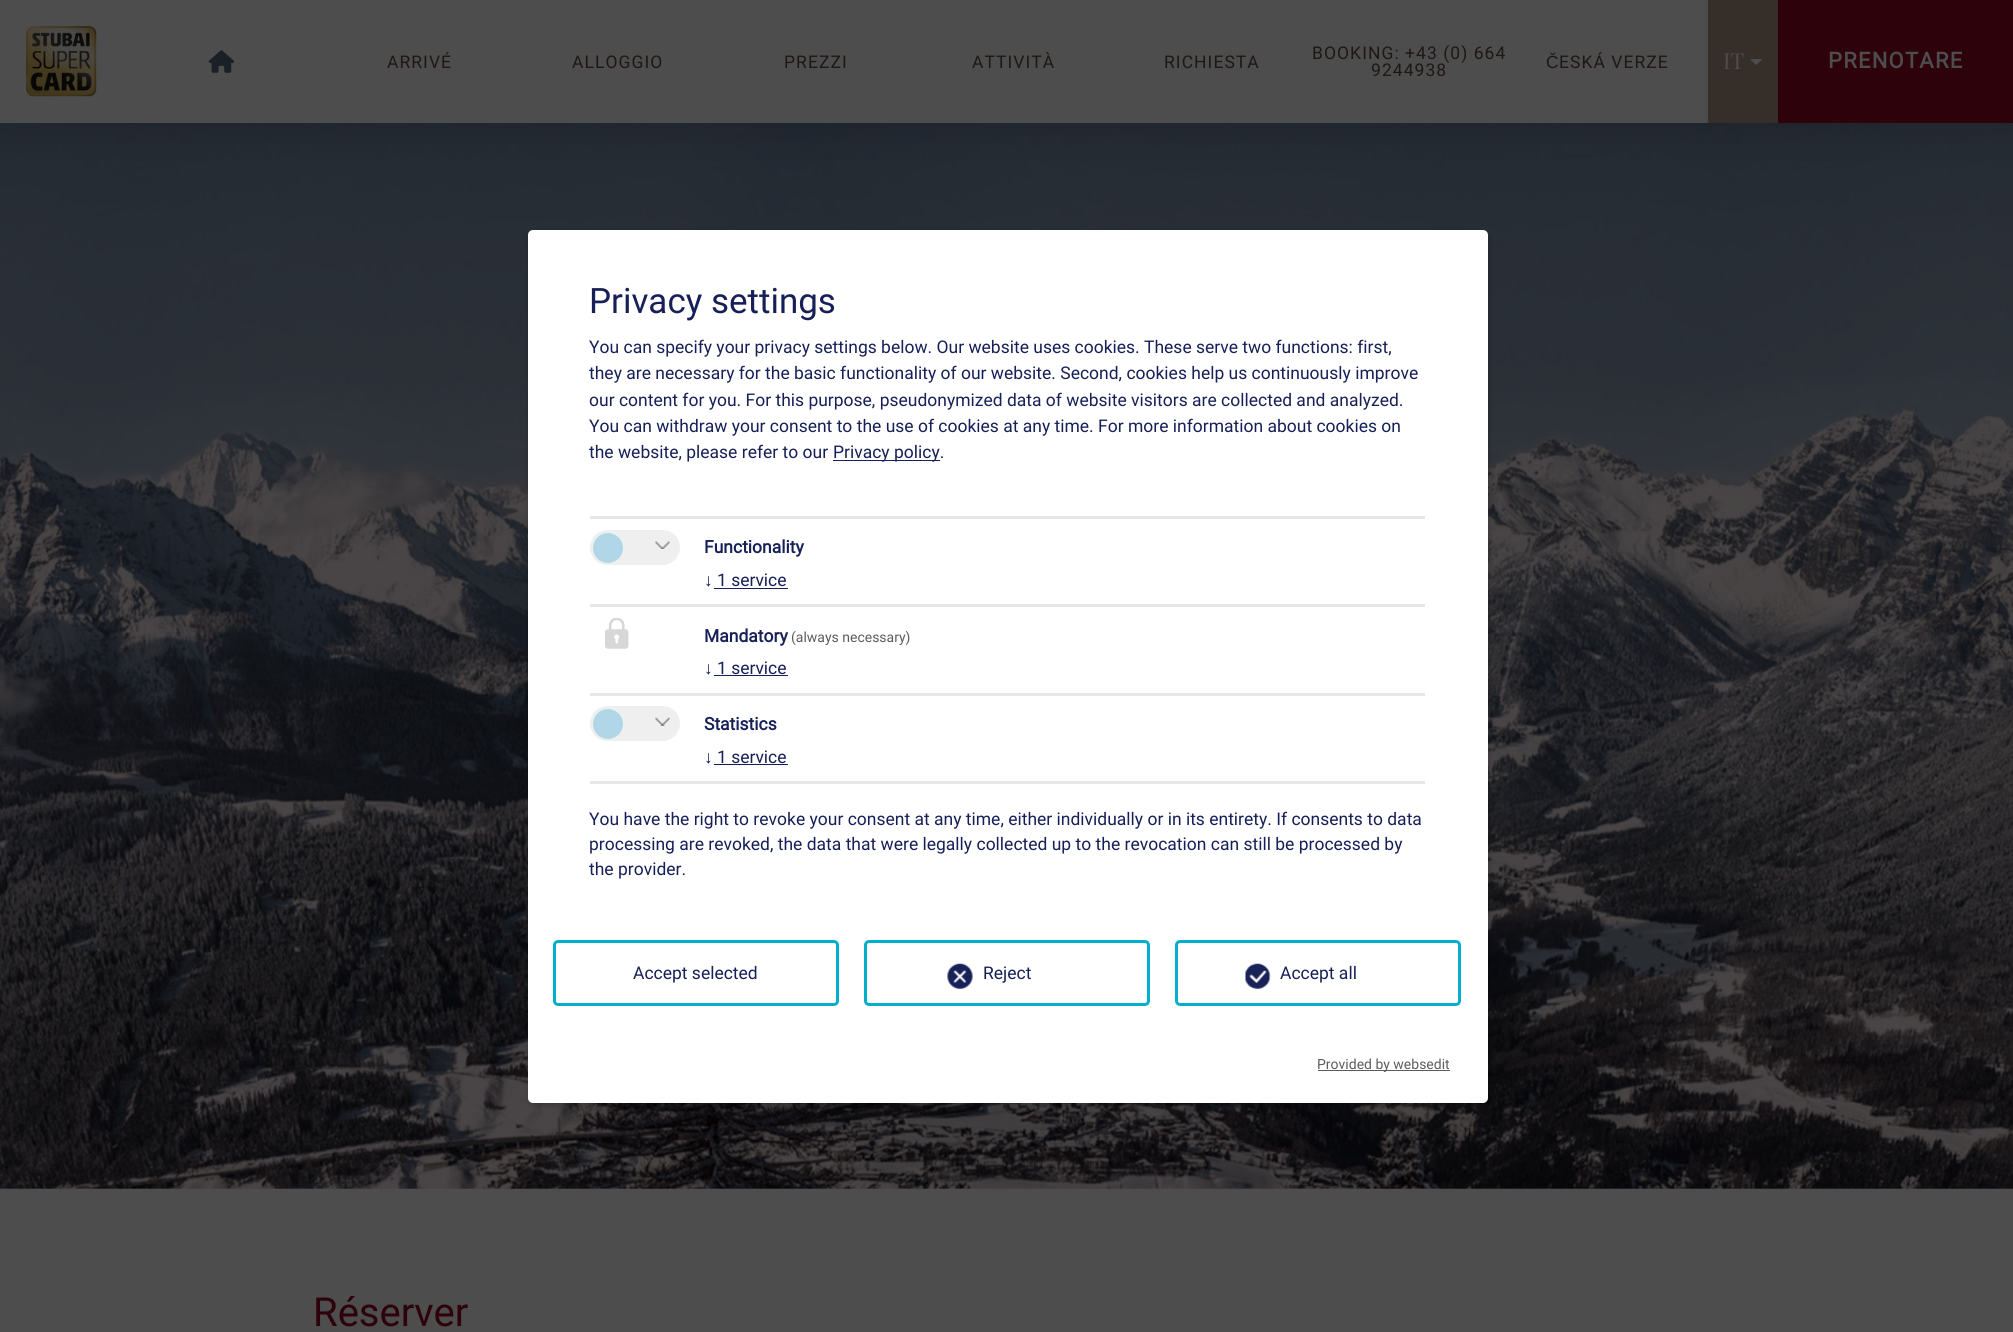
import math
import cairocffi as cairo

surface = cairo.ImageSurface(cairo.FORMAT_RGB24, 2013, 1332)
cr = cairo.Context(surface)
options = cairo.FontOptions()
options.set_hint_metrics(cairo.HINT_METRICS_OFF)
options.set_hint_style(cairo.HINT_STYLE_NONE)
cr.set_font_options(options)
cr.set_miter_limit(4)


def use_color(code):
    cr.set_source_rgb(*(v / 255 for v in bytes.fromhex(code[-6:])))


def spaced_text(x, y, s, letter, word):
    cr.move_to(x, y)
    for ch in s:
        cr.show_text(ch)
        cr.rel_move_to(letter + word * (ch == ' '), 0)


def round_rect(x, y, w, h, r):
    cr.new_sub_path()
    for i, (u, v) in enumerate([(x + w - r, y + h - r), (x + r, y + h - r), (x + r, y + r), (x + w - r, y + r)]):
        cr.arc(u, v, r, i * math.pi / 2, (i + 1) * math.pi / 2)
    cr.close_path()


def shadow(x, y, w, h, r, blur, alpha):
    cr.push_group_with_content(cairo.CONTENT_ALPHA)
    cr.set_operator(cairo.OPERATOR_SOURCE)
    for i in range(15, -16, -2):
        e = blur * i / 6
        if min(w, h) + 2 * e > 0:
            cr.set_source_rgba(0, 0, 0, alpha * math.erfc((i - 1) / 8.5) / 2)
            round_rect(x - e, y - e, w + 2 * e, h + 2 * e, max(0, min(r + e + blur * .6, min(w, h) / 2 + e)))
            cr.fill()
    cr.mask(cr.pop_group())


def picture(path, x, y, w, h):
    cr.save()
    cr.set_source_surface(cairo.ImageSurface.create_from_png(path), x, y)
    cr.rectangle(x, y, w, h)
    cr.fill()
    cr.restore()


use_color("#4d4d4d")
cr.paint()
use_color("#4a4546")
cr.rectangle(0, 1188, 2013, 1)
cr.fill()
picture("img3.png", 0, 123, 2013, 1066)
use_color("#000000")
shadow(0, 0, 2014, 123, 0, 25, 0.18)
use_color("#4d4d4d")
cr.rectangle(0, 0, 1708, 123)
cr.fill()
picture("img1.png", 26, 26, 71, 71)
picture("img2.png", 208, 50, 26, 23)
cr.select_font_face("Roboto")
cr.set_font_size(17.5)
use_color("#1e1714")
spaced_text(387, 68, "ARRIVÉ", 1.05, 0)
spaced_text(572, 68, "ALLOGGIO", 1.05, 0)
spaced_text(784, 68, "PREZZI", 1.05, 0)
spaced_text(972, 68, "ATTIVITÀ", 1.05, 0)
spaced_text(1164, 68, "RICHIESTA", 1.05, 0)
spaced_text(1312, 59, "BOOKING: +43 (0) 664", 1.05, 0)
spaced_text(1371, 76, "9244938", 1.05, 0)
cr.select_font_face("Liberation Sans")
spaced_text(1546, 68, "Č", 1.05, 0)
cr.select_font_face("Roboto")
spaced_text(1559, 68, "ESKÁ VERZE", 1.05, 0)
use_color("#474747")
cr.rectangle(1706, 0, 1, 123)
cr.fill()
use_color("#362e29")
cr.rectangle(1708, 0, 70, 123)
cr.fill()
cr.select_font_face("Playfair Display")
cr.set_font_size(22)
use_color("#4d4d4d")
cr.move_to(1723, 69)
cr.show_text("IT")
cr.new_path()
cr.move_to(1750, 59)
cr.line_to(1762.5, 59)
cr.line_to(1756, 65)
cr.close_path()
cr.fill()
use_color("#2d020b")
cr.rectangle(1778, 0, 235, 123)
cr.fill()
cr.select_font_face("Roboto", cairo.FONT_SLANT_NORMAL, cairo.FONT_WEIGHT_BOLD)
use_color("#4d4d4d")
spaced_text(1828, 68, "PRENOTARE", 1.25, 0)
use_color("#000000")
shadow(529, 233, 960, 872, 5, 3, 0.2)
use_color("#ffffff")
round_rect(528, 230, 960, 873, 5)
cr.fill()
cr.select_font_face("Roboto")
cr.set_font_size(35)
use_color("#161f57")
cr.move_to(589, 313)
cr.show_text("Privacy settings")
cr.set_font_size(17.5)
cr.move_to(589, 353)
cr.show_text("You can specify your privacy settings below. Our website uses cookies. These serve two functions: first,")
cr.move_to(589, 379)
cr.show_text("they are necessary for the basic functionality of our website. Second, cookies help us continuously improve")
cr.move_to(589, 406)
cr.show_text("our content for you. For this purpose, pseudonymized data of website visitors are collected and analyzed.")
cr.move_to(589, 432)
cr.show_text("You can withdraw your consent to the use of cookies at any time. For more information about cookies on")
cr.move_to(589, 458)
cr.show_text("the website, please refer to our")
cr.rectangle(833, 460, 107, 1)
cr.fill()
cr.move_to(833, 458)
cr.show_text("Privacy policy.")
use_color("#e6e6e6")
cr.rectangle(590, 516, 835, 3)
cr.fill()
use_color("#efefef")
round_rect(590, 530, 90, 35, 17.5)
cr.fill()
use_color("#b1d6e8")
cr.arc(608, 548, 15, 0, 2 * math.pi)
cr.fill()
picture("img4.png", 655, 541, 15, 8)
cr.select_font_face("Roboto", cairo.FONT_SLANT_NORMAL, cairo.FONT_WEIGHT_BOLD)
use_color("#161f57")
cr.move_to(704, 553)
cr.show_text("Functionality")
cr.select_font_face("Liberation Sans")
cr.move_to(704, 586)
cr.show_text("↓")
cr.select_font_face("Roboto")
cr.move_to(717, 586)
cr.show_text("1 service")
cr.rectangle(714, 588, 74, 1)
cr.fill()
use_color("#e6e6e6")
cr.rectangle(590, 604, 835, 3)
cr.fill()
picture("img5.png", 605, 618, 24, 31)
cr.select_font_face("Roboto", cairo.FONT_SLANT_NORMAL, cairo.FONT_WEIGHT_BOLD)
use_color("#161f57")
cr.move_to(704, 642)
cr.show_text("Mandatory")
cr.select_font_face("Roboto")
cr.set_font_size(14)
use_color("#5c5c5c")
cr.move_to(791, 642)
cr.show_text("(always necessary)")
cr.select_font_face("Liberation Sans")
cr.set_font_size(17.5)
use_color("#161f57")
cr.move_to(704, 674)
cr.show_text("↓")
cr.select_font_face("Roboto")
cr.move_to(717, 674)
cr.show_text("1 service")
cr.rectangle(714, 675, 74, 1)
cr.fill()
use_color("#e6e6e6")
cr.rectangle(590, 693, 835, 3)
cr.fill()
use_color("#efefef")
round_rect(590, 706, 90, 35, 17.5)
cr.fill()
use_color("#b1d6e8")
cr.arc(608, 724, 15, 0, 2 * math.pi)
cr.fill()
picture("img6.png", 655, 717, 15, 9)
cr.select_font_face("Roboto", cairo.FONT_SLANT_NORMAL, cairo.FONT_WEIGHT_BOLD)
use_color("#161f57")
cr.move_to(704, 730)
cr.show_text("Statistics")
cr.select_font_face("Liberation Sans")
cr.move_to(704, 763)
cr.show_text("↓")
cr.select_font_face("Roboto")
cr.move_to(717, 763)
cr.show_text("1 service")
cr.rectangle(714, 764, 74, 1)
cr.fill()
use_color("#e6e6e6")
cr.rectangle(590, 781, 835, 3)
cr.fill()
use_color("#161f57")
cr.move_to(589, 825)
cr.show_text("You have the right to revoke your consent at any time, either individually or in its entirety. If consents to data")
cr.move_to(589, 850)
cr.show_text("processing are revoked, the data that were legally collected up to the revocation can still be processed by")
cr.move_to(589, 875)
cr.show_text("the provider.")
round_rect(554.5, 941.5, 283, 63, 3.5)
use_color("#00afcb")
cr.set_line_width(3)
cr.stroke()
use_color("#161f57")
cr.move_to(633, 979)
cr.show_text("Accept selected")
round_rect(865.5, 941.5, 283, 63, 3.5)
use_color("#00afcb")
cr.stroke()
picture("img7.png", 947, 963, 26, 26)
use_color("#161f57")
cr.move_to(983, 979)
cr.show_text("Reject")
round_rect(1176.5, 941.5, 283, 63, 3.5)
use_color("#00afcb")
cr.stroke()
picture("img8.png", 1245, 963, 26, 26)
use_color("#161f57")
cr.move_to(1280, 979)
cr.show_text("Accept all")
use_color("#5c5c5c")
cr.rectangle(1318, 1070, 132, 1)
cr.fill()
cr.set_font_size(14)
cr.move_to(1317, 1069)
cr.show_text("Provided by websedit")
cr.set_font_size(40)
use_color("#2d020b")
cr.move_to(313, 1326)
cr.show_text("Réserver")
surface.write_to_png("result.png")
